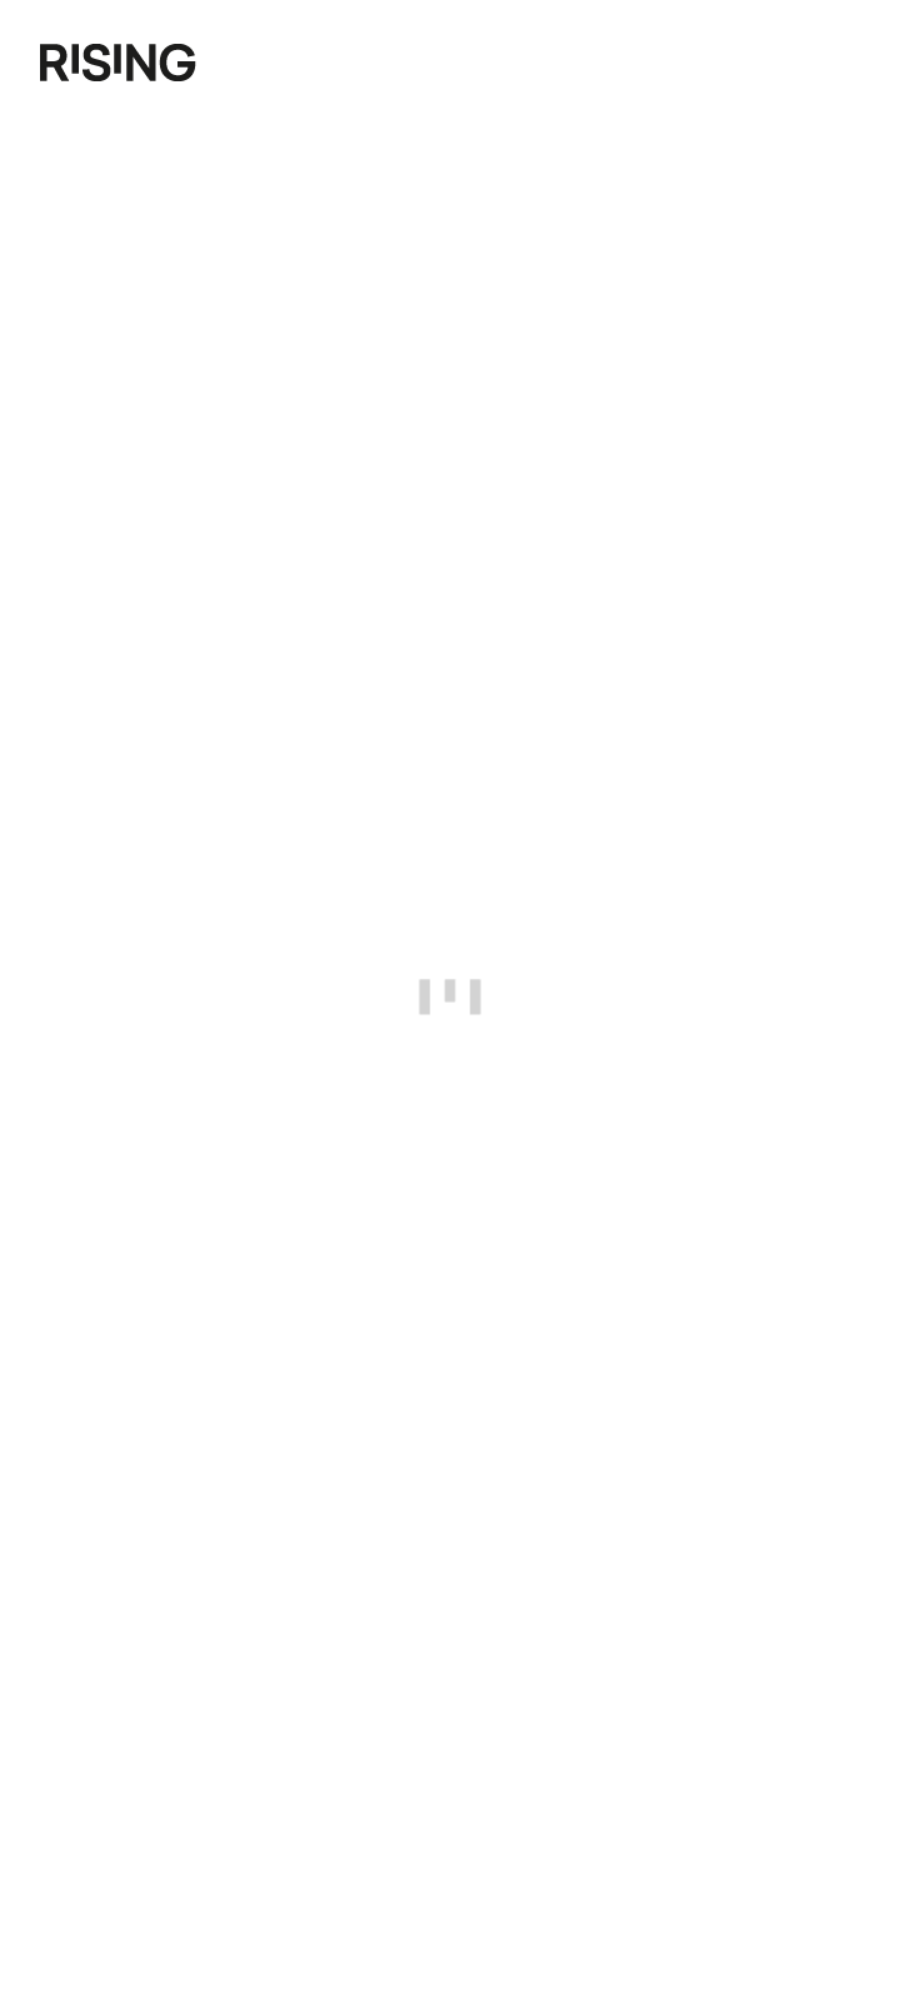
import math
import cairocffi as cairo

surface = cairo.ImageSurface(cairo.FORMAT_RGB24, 898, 2015)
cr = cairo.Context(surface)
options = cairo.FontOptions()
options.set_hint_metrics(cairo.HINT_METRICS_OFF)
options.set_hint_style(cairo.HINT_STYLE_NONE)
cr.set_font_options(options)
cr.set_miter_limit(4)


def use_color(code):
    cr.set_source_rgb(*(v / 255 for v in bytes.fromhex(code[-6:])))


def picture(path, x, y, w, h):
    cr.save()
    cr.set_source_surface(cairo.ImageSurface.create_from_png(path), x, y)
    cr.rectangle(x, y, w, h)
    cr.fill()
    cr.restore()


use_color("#ffffff")
cr.paint()
picture("img1.png", 39, 43, 158, 39)
picture("img2.png", 418, 978, 64, 38)
surface.write_to_png("result.png")
